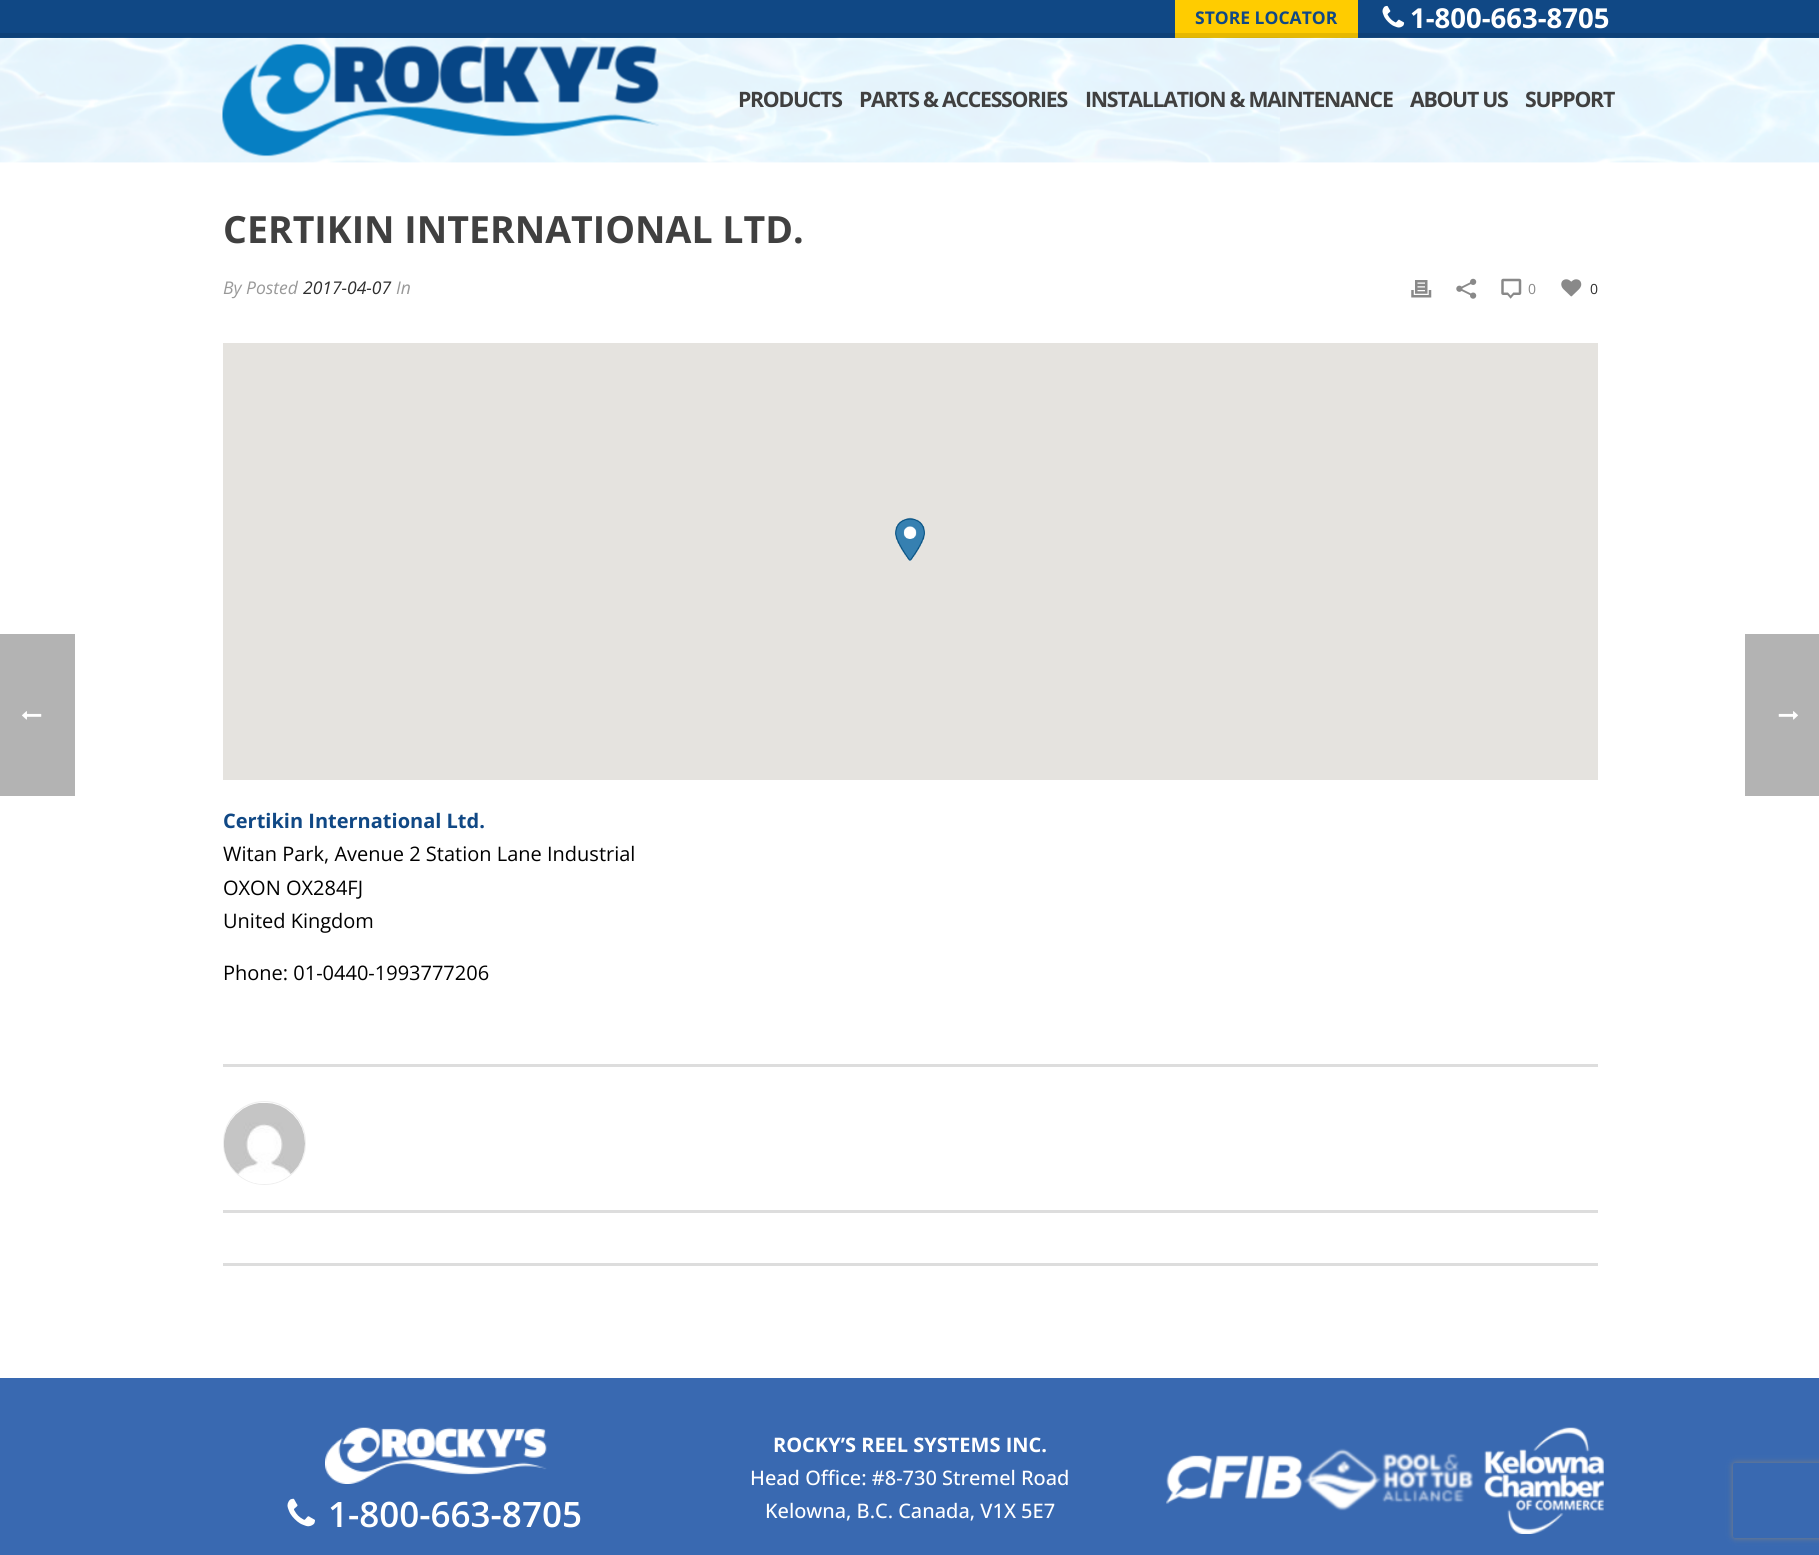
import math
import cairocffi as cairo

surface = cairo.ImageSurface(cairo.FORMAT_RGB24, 1819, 1555)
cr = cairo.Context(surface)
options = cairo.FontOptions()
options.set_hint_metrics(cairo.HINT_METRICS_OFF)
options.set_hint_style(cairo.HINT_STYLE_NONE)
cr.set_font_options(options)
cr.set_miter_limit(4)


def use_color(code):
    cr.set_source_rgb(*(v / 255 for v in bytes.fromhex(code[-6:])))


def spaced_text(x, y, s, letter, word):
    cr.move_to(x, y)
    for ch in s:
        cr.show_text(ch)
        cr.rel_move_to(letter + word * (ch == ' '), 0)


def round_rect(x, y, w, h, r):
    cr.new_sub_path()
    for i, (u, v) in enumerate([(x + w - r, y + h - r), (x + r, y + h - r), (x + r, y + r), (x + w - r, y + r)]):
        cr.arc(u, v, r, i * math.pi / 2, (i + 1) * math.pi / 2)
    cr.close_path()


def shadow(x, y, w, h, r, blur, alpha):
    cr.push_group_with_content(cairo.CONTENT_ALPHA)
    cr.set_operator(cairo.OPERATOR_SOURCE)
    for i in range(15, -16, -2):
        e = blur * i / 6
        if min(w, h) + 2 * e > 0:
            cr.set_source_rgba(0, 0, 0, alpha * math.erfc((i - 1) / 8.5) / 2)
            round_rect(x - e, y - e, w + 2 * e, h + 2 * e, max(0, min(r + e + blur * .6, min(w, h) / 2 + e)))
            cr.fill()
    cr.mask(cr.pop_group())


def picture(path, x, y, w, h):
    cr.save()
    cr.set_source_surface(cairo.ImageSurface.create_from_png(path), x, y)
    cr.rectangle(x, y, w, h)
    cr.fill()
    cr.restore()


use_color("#ffffff")
cr.paint()
use_color("#b3b3b3")
cr.rectangle(0, 634, 75, 162)
cr.fill()
picture("img1.png", 22, 711, 20, 9)
use_color("#104885")
cr.rectangle(0, 0, 1819, 38)
cr.fill()
use_color("#ffcc00")
cr.rectangle(1175, 0, 183, 38)
cr.fill()
cr.select_font_face("Open Sans", cairo.FONT_SLANT_NORMAL, cairo.FONT_WEIGHT_BOLD)
cr.set_font_size(17.5)
use_color("#104885")
cr.move_to(1195, 24)
cr.show_text("STORE LOCATOR")
picture("img2.png", 1382, 5, 23, 23)
cr.set_font_size(27.5)
use_color("#ffffff")
cr.move_to(1410, 28)
cr.show_text("1-800-663-8705")
picture("img3.png", 0, 37, 1819, 126)
cr.set_source_rgba(0, 0, 0, 0.1)
cr.rectangle(0, 33, 1819, 5)
cr.fill()
picture("img4.png", 222, 43, 438, 114)
cr.set_font_size(21.25)
use_color("#404040")
spaced_text(738, 107, "PRODUCTS", -1.25, 0)
spaced_text(859, 107, "PARTS & ACCESSORIES", -1.25, 0)
spaced_text(1085, 107, "INSTALLATION & MAINTENANCE", -1.25, 0)
spaced_text(1410, 107, "ABOUT US", -1.25, 0)
spaced_text(1525, 107, "SUPPORT", -1.25, 0)
cr.set_font_size(37.5)
cr.move_to(223, 243)
cr.show_text("CERTIKIN INTERNATIONAL LTD.")
cr.select_font_face("Open Sans", cairo.FONT_SLANT_ITALIC)
cr.set_font_size(17.5)
use_color("#999999")
cr.move_to(223, 294)
cr.show_text("By")
cr.move_to(246, 294)
cr.show_text("Posted")
use_color("#2e2e2e")
cr.move_to(303, 294)
cr.show_text("2017-04-07")
use_color("#999999")
cr.move_to(396, 294)
cr.show_text("In")
picture("img5.png", 1411, 280, 21, 18)
picture("img6.png", 1456, 278, 21, 21)
picture("img7.png", 1501, 278, 21, 21)
cr.select_font_face("Open Sans")
cr.set_font_size(14)
use_color("#898989")
cr.move_to(1528, 294)
cr.show_text("0")
picture("img8.png", 1561, 279, 21, 18)
use_color("#2e2e2e")
cr.move_to(1590, 294)
cr.show_text("0")
use_color("#e5e3df")
cr.rectangle(223, 343, 1375, 437)
cr.fill()
picture("img9.png", 895, 517, 30, 44)
cr.select_font_face("Open Sans", cairo.FONT_SLANT_NORMAL, cairo.FONT_WEIGHT_BOLD)
cr.set_font_size(20)
use_color("#104885")
cr.move_to(223, 828)
cr.show_text("Certikin International Ltd.")
cr.select_font_face("Open Sans")
use_color("#000000")
cr.move_to(223, 861)
cr.show_text("Witan Park, Avenue 2 Station Lane Industrial")
cr.move_to(223, 895)
cr.show_text("OXON OX284FJ")
cr.move_to(223, 928)
cr.show_text("United Kingdom")
cr.move_to(223, 980)
cr.show_text("Phone: 01-0440-1993777206")
use_color("#dddddd")
cr.rectangle(223, 1064, 1375, 3)
cr.fill()
cr.rectangle(223, 1210, 1375, 3)
cr.fill()
round_rect(223.5, 1101.5, 82, 83, 41)
use_color("#eeeeee")
cr.set_line_width(1)
cr.stroke()
picture("img10.png", 224, 1103, 81, 81)
use_color("#dddddd")
cr.rectangle(223, 1263, 1375, 3)
cr.fill()
use_color("#b3b3b3")
cr.rectangle(1745, 634, 74, 162)
cr.fill()
picture("img11.png", 1778, 711, 20, 9)
use_color("#3969b1")
cr.rectangle(0, 1378, 1819, 177)
cr.fill()
picture("img12.png", 325, 1427, 222, 57)
picture("img13.png", 287, 1498, 28, 29)
cr.select_font_face("Open Sans SemiBold")
cr.set_font_size(35)
use_color("#ffffff")
cr.move_to(328, 1527)
cr.show_text("1-800-663-8705")
cr.select_font_face("Open Sans", cairo.FONT_SLANT_NORMAL, cairo.FONT_WEIGHT_BOLD)
cr.set_font_size(20)
cr.move_to(773, 1452)
cr.show_text("ROCKY’S REEL SYSTEMS INC.")
cr.select_font_face("Open Sans Medium")
cr.move_to(750, 1485)
cr.show_text("Head Office: #8-730 Stremel Road")
cr.move_to(765, 1518)
cr.show_text("Kelowna, B.C. Canada, V1X 5E7")
picture("img14.png", 1166, 1427, 438, 107)
cr.save()
cr.set_fill_rule(cairo.FILL_RULE_EVEN_ODD)
cr.new_path()
cr.move_to(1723, 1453)
cr.line_to(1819, 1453)
cr.line_to(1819, 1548)
cr.line_to(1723, 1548)
cr.close_path()
cr.move_to(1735.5, 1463)
cr.line_to(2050.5, 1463)
cr.curve_to(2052, 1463, 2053, 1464, 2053, 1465.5)
cr.line_to(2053, 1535.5)
cr.curve_to(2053, 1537, 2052, 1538, 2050.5, 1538)
cr.line_to(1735.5, 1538)
cr.curve_to(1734, 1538, 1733, 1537, 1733, 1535.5)
cr.line_to(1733, 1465.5)
cr.curve_to(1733, 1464, 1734, 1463, 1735.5, 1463)
cr.close_path()
cr.clip()
use_color("#808080")
shadow(1733, 1463, 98, 75, 2.5, 3, 1)
cr.restore()
surface.write_to_png("result.png")
